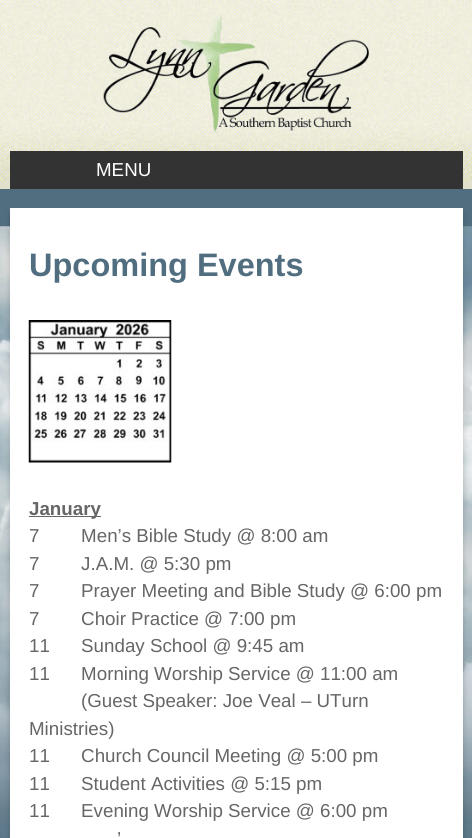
import math
import cairocffi as cairo

surface = cairo.ImageSurface(cairo.FORMAT_RGB24, 472, 838)
cr = cairo.Context(surface)
options = cairo.FontOptions()
options.set_hint_metrics(cairo.HINT_METRICS_OFF)
options.set_hint_style(cairo.HINT_STYLE_NONE)
cr.set_font_options(options)
cr.set_miter_limit(4)


def use_color(code):
    cr.set_source_rgb(*(v / 255 for v in bytes.fromhex(code[-6:])))


def round_rect(x, y, w, h, r):
    cr.new_sub_path()
    for i, (u, v) in enumerate([(x + w - r, y + h - r), (x + r, y + h - r), (x + r, y + r), (x + w - r, y + r)]):
        cr.arc(u, v, r, i * math.pi / 2, (i + 1) * math.pi / 2)
    cr.close_path()


def shadow(x, y, w, h, r, blur, alpha):
    cr.push_group_with_content(cairo.CONTENT_ALPHA)
    cr.set_operator(cairo.OPERATOR_SOURCE)
    for i in range(15, -16, -2):
        e = blur * i / 6
        if min(w, h) + 2 * e > 0:
            cr.set_source_rgba(0, 0, 0, alpha * math.erfc((i - 1) / 8.5) / 2)
            round_rect(x - e, y - e, w + 2 * e, h + 2 * e, max(0, min(r + e + blur * .6, min(w, h) / 2 + e)))
            cr.fill()
    cr.mask(cr.pop_group())


def picture(path, x, y, w, h):
    cr.save()
    cr.set_source_surface(cairo.ImageSurface.create_from_png(path), x, y)
    cr.rectangle(x, y, w, h)
    cr.fill()
    cr.restore()


use_color("#516e80")
cr.paint()
picture("img1.png", 0, 226, 472, 612)
use_color("#e1e0cc")
cr.rectangle(0, 181, 472, 8)
cr.fill()
picture("img2.png", 0, 0, 472, 182)
picture("img3.png", 103, 15, 266, 117)
use_color("#333333")
cr.rectangle(10, 151, 453, 38)
cr.fill()
cr.select_font_face("Liberation Sans")
cr.set_font_size(18.75)
use_color("#ffffff")
cr.move_to(96, 176)
cr.show_text("MENU")
use_color("#000000")
shadow(10, 214, 453, 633, 0, 3, 0.2)
use_color("#ffffff")
cr.rectangle(10, 208, 453, 630)
cr.fill()
cr.select_font_face("Liberation Sans", cairo.FONT_SLANT_NORMAL, cairo.FONT_WEIGHT_BOLD)
cr.set_font_size(32.5)
use_color("#516e80")
cr.move_to(29, 276)
cr.show_text("Upcoming Events")
picture("img4.png", 28, 320, 144, 143)
use_color("#666666")
cr.rectangle(29, 516, 72, 1)
cr.fill()
cr.set_font_size(18.75)
cr.move_to(29, 515)
cr.show_text("January")
cr.select_font_face("Liberation Sans")
cr.move_to(29, 542)
cr.show_text("7        Men’s Bible Study @ 8:00 am")
cr.move_to(29, 570)
cr.show_text("7        J.A.M. @ 5:30 pm")
cr.move_to(29, 597)
cr.show_text("7        Prayer Meeting and Bible Study @ 6:00 pm")
cr.move_to(29, 625)
cr.show_text("7        Choir Practice @ 7:00 pm")
cr.move_to(29, 652)
cr.show_text("11      Sunday School @ 9:45 am")
cr.move_to(29, 680)
cr.show_text("11      Morning Worship Service @ 11:00 am")
cr.move_to(81, 707)
cr.show_text("(Guest Speaker: Joe Veal – UTurn")
cr.move_to(29, 735)
cr.show_text("Ministries)")
cr.move_to(29, 762)
cr.show_text("11      Church Council Meeting @ 5:00 pm")
cr.move_to(29, 790)
cr.show_text("11      Student Activities @ 5:15 pm")
cr.move_to(29, 817)
cr.show_text("11      Evening Worship Service @ 6:00 pm")
cr.move_to(117, 845)
cr.show_text("’")
surface.write_to_png("result.png")
